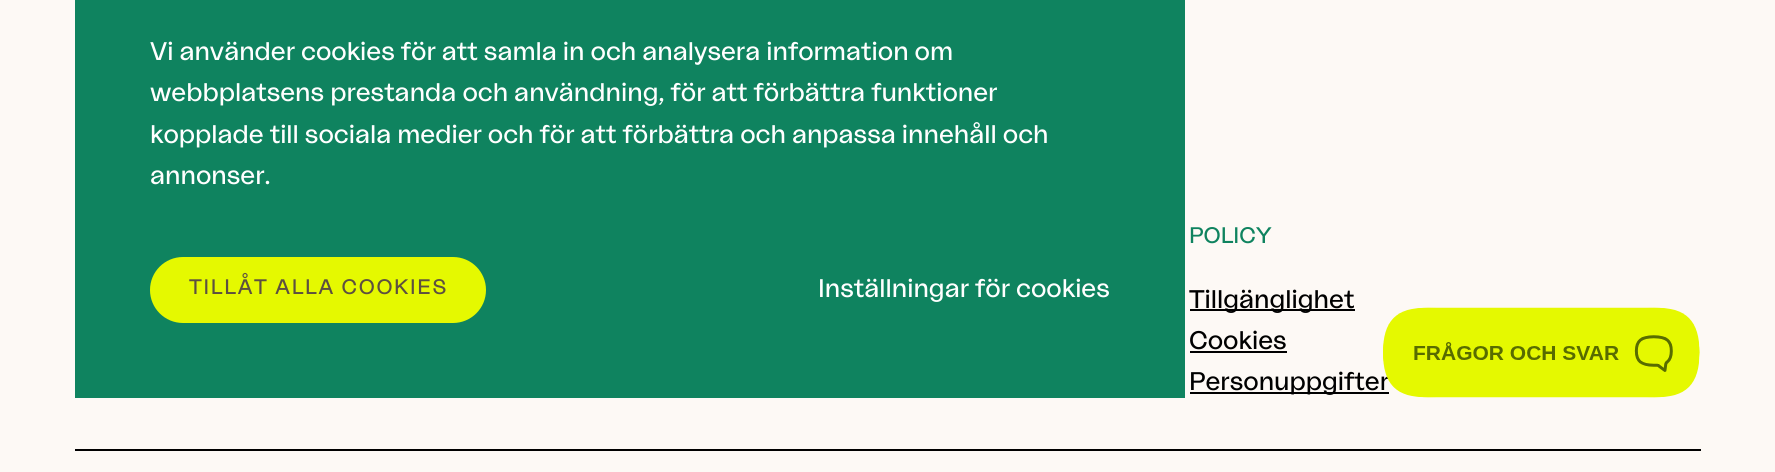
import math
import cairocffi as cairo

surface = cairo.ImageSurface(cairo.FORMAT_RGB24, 1775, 472)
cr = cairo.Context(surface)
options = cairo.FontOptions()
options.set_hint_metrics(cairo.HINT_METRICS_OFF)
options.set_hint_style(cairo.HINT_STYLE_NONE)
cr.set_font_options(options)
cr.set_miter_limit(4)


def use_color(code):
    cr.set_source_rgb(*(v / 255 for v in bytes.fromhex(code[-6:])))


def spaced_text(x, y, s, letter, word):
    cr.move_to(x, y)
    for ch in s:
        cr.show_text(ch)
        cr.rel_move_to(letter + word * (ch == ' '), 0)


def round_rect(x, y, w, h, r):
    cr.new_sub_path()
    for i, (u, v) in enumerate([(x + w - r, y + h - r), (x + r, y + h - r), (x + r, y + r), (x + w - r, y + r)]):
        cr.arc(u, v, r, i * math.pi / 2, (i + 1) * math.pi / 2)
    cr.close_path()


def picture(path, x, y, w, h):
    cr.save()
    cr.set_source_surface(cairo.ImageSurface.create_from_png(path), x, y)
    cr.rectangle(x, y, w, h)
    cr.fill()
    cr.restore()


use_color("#fdf9f5")
cr.paint()
use_color("#0f835f")
cr.rectangle(75, 0, 1110, 398)
cr.fill()
cr.select_font_face("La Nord")
cr.set_font_size(25.5)
use_color("#ffffff")
cr.move_to(150, 60)
cr.show_text("Vi använder cookies för att samla in och analysera information om")
cr.move_to(150, 101)
cr.show_text("webbplatsens prestanda och användning, för att förbättra funktioner")
cr.move_to(150, 143)
cr.show_text("kopplade till sociala medier och för att förbättra och anpassa innehåll och")
cr.move_to(150, 184)
cr.show_text("annonser.")
use_color("#e5f900")
round_rect(150, 257, 336, 66, 33)
cr.fill()
cr.set_font_size(21)
use_color("#5d5040")
spaced_text(189, 294, "TILLÅT ALLA COOKIES", 1.7, 0)
cr.set_font_size(25.5)
use_color("#ffffff")
cr.move_to(818, 297)
cr.show_text("Inställningar för cookies")
cr.set_font_size(22.5)
use_color("#0f835f")
cr.move_to(1189, 243)
cr.show_text("POLICY")
use_color("#000000")
cr.rectangle(1190, 309, 165, 2)
cr.fill()
cr.set_font_size(25.5)
cr.move_to(1189, 308)
cr.show_text("Tillgänglighet")
cr.move_to(1189, 349)
cr.show_text("Cookies")
cr.rectangle(1190, 351, 97, 2)
cr.fill()
cr.rectangle(1190, 392, 199, 2)
cr.fill()
cr.move_to(1189, 390)
cr.show_text("Personuppgifter")
cr.rectangle(75, 449, 1626, 2)
cr.fill()
picture("img1.png", 1383, 307, 317, 91)
surface.write_to_png("result.png")
